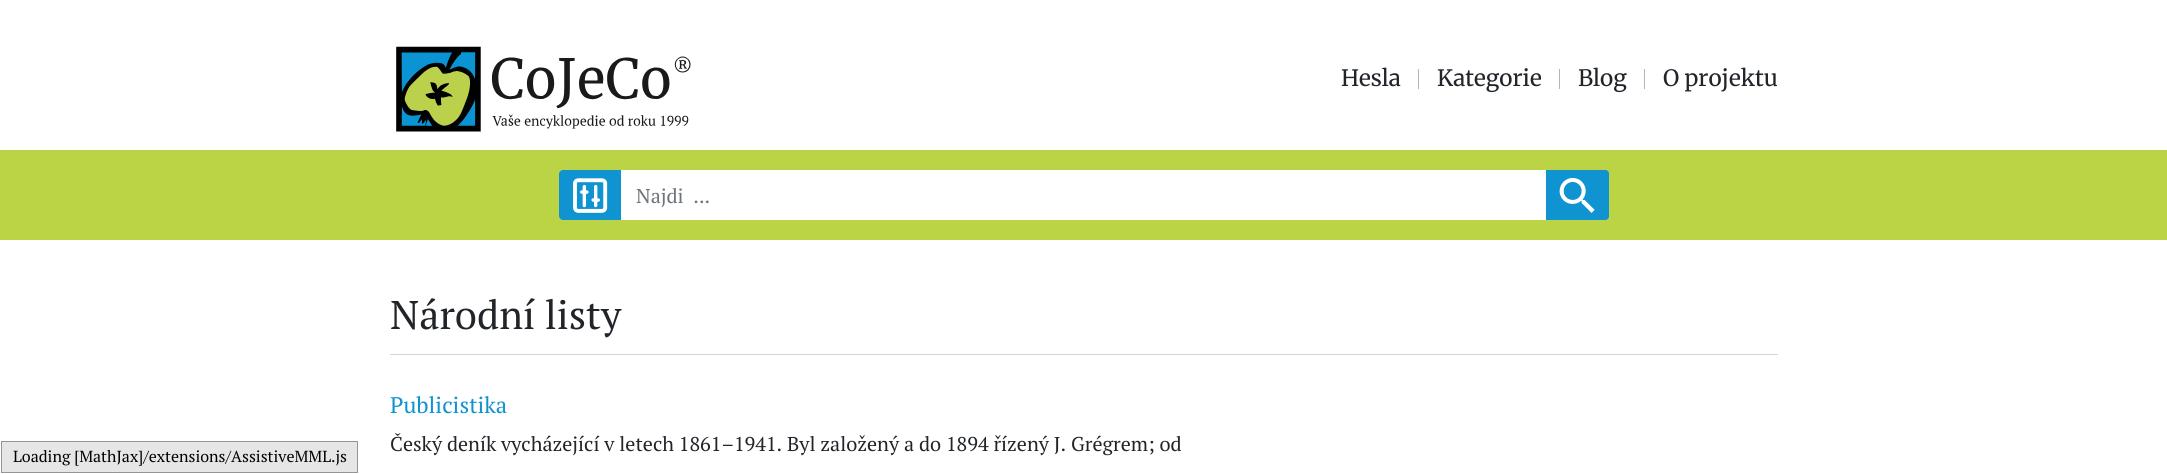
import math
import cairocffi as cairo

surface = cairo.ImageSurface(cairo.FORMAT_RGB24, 2167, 474)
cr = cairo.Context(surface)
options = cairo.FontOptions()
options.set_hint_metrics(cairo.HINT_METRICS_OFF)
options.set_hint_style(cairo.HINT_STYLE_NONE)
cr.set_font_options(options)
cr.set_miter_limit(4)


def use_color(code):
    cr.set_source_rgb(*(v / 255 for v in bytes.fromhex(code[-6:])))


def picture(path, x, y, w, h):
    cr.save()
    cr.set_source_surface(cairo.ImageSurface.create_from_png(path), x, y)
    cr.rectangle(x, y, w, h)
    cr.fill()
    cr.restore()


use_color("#ffffff")
cr.paint()
picture("img1.png", 396, 46, 295, 86)
use_color("#adb5bd")
cr.rectangle(1418, 69, 1, 20)
cr.fill()
cr.select_font_face("Merriweather")
cr.set_font_size(22.5)
use_color("#212529")
cr.move_to(1341, 86)
cr.show_text("Hesla")
use_color("#adb5bd")
cr.rectangle(1559, 69, 1, 20)
cr.fill()
use_color("#212529")
cr.move_to(1437, 86)
cr.show_text("Kategorie")
use_color("#adb5bd")
cr.rectangle(1644, 69, 1, 20)
cr.fill()
use_color("#212529")
cr.move_to(1578, 86)
cr.show_text("Blog")
cr.move_to(1663, 86)
cr.show_text("O projektu")
use_color("#bbd445")
cr.rectangle(0, 150, 2167, 90)
cr.fill()
use_color("#1093d1")
cr.new_path()
cr.move_to(563, 170)
cr.line_to(621, 170)
cr.line_to(621, 220)
cr.line_to(563, 220)
cr.curve_to(561, 220, 559, 218, 559, 216)
cr.line_to(559, 174)
cr.curve_to(559, 172, 561, 170, 563, 170)
cr.close_path()
cr.fill()
picture("img2.png", 573, 178, 35, 35)
use_color("#ffffff")
cr.rectangle(621, 170, 925, 50)
cr.fill()
cr.select_font_face("PT Serif")
cr.set_font_size(20)
use_color("#6c757d")
cr.move_to(636, 203)
cr.show_text("Najdi  ...")
use_color("#1093d1")
cr.new_path()
cr.move_to(1546, 170)
cr.line_to(1605, 170)
cr.curve_to(1607, 170, 1609, 172, 1609, 174)
cr.line_to(1609, 216)
cr.curve_to(1609, 218, 1607, 220, 1605, 220)
cr.line_to(1546, 220)
cr.close_path()
cr.fill()
picture("img3.png", 1559, 177, 36, 36)
cr.new_path()
cr.move_to(1546.5, 170.5)
cr.line_to(1605, 170.5)
cr.curve_to(1607, 170.5, 1608.5, 172, 1608.5, 174)
cr.line_to(1608.5, 216)
cr.curve_to(1608.5, 218, 1607, 219.5, 1605, 219.5)
cr.line_to(1546.5, 219.5)
cr.close_path()
cr.set_line_width(1)
cr.stroke()
cr.set_font_size(40)
use_color("#212529")
cr.move_to(390, 329)
cr.show_text("Národní listy")
use_color("#d2d4d7")
cr.rectangle(390, 354, 1388, 1)
cr.fill()
cr.set_font_size(22.5)
use_color("#1093d1")
cr.move_to(390, 413)
cr.show_text("Publicistika")
cr.set_font_size(20)
use_color("#212529")
cr.move_to(390, 451)
cr.show_text("Český deník vycházející v letech 1861–1941. Byl založený a do 1894 řízený J. Grégrem; od")
use_color("#e6e6e6")
cr.rectangle(1.5, 441.5, 356, 31)
cr.fill_preserve()
use_color("#959595")
cr.stroke()
cr.set_font_size(16)
use_color("#000000")
cr.move_to(13, 462)
cr.show_text("Loading [MathJax]/extensions/AssistiveMML.js")
surface.write_to_png("result.png")
